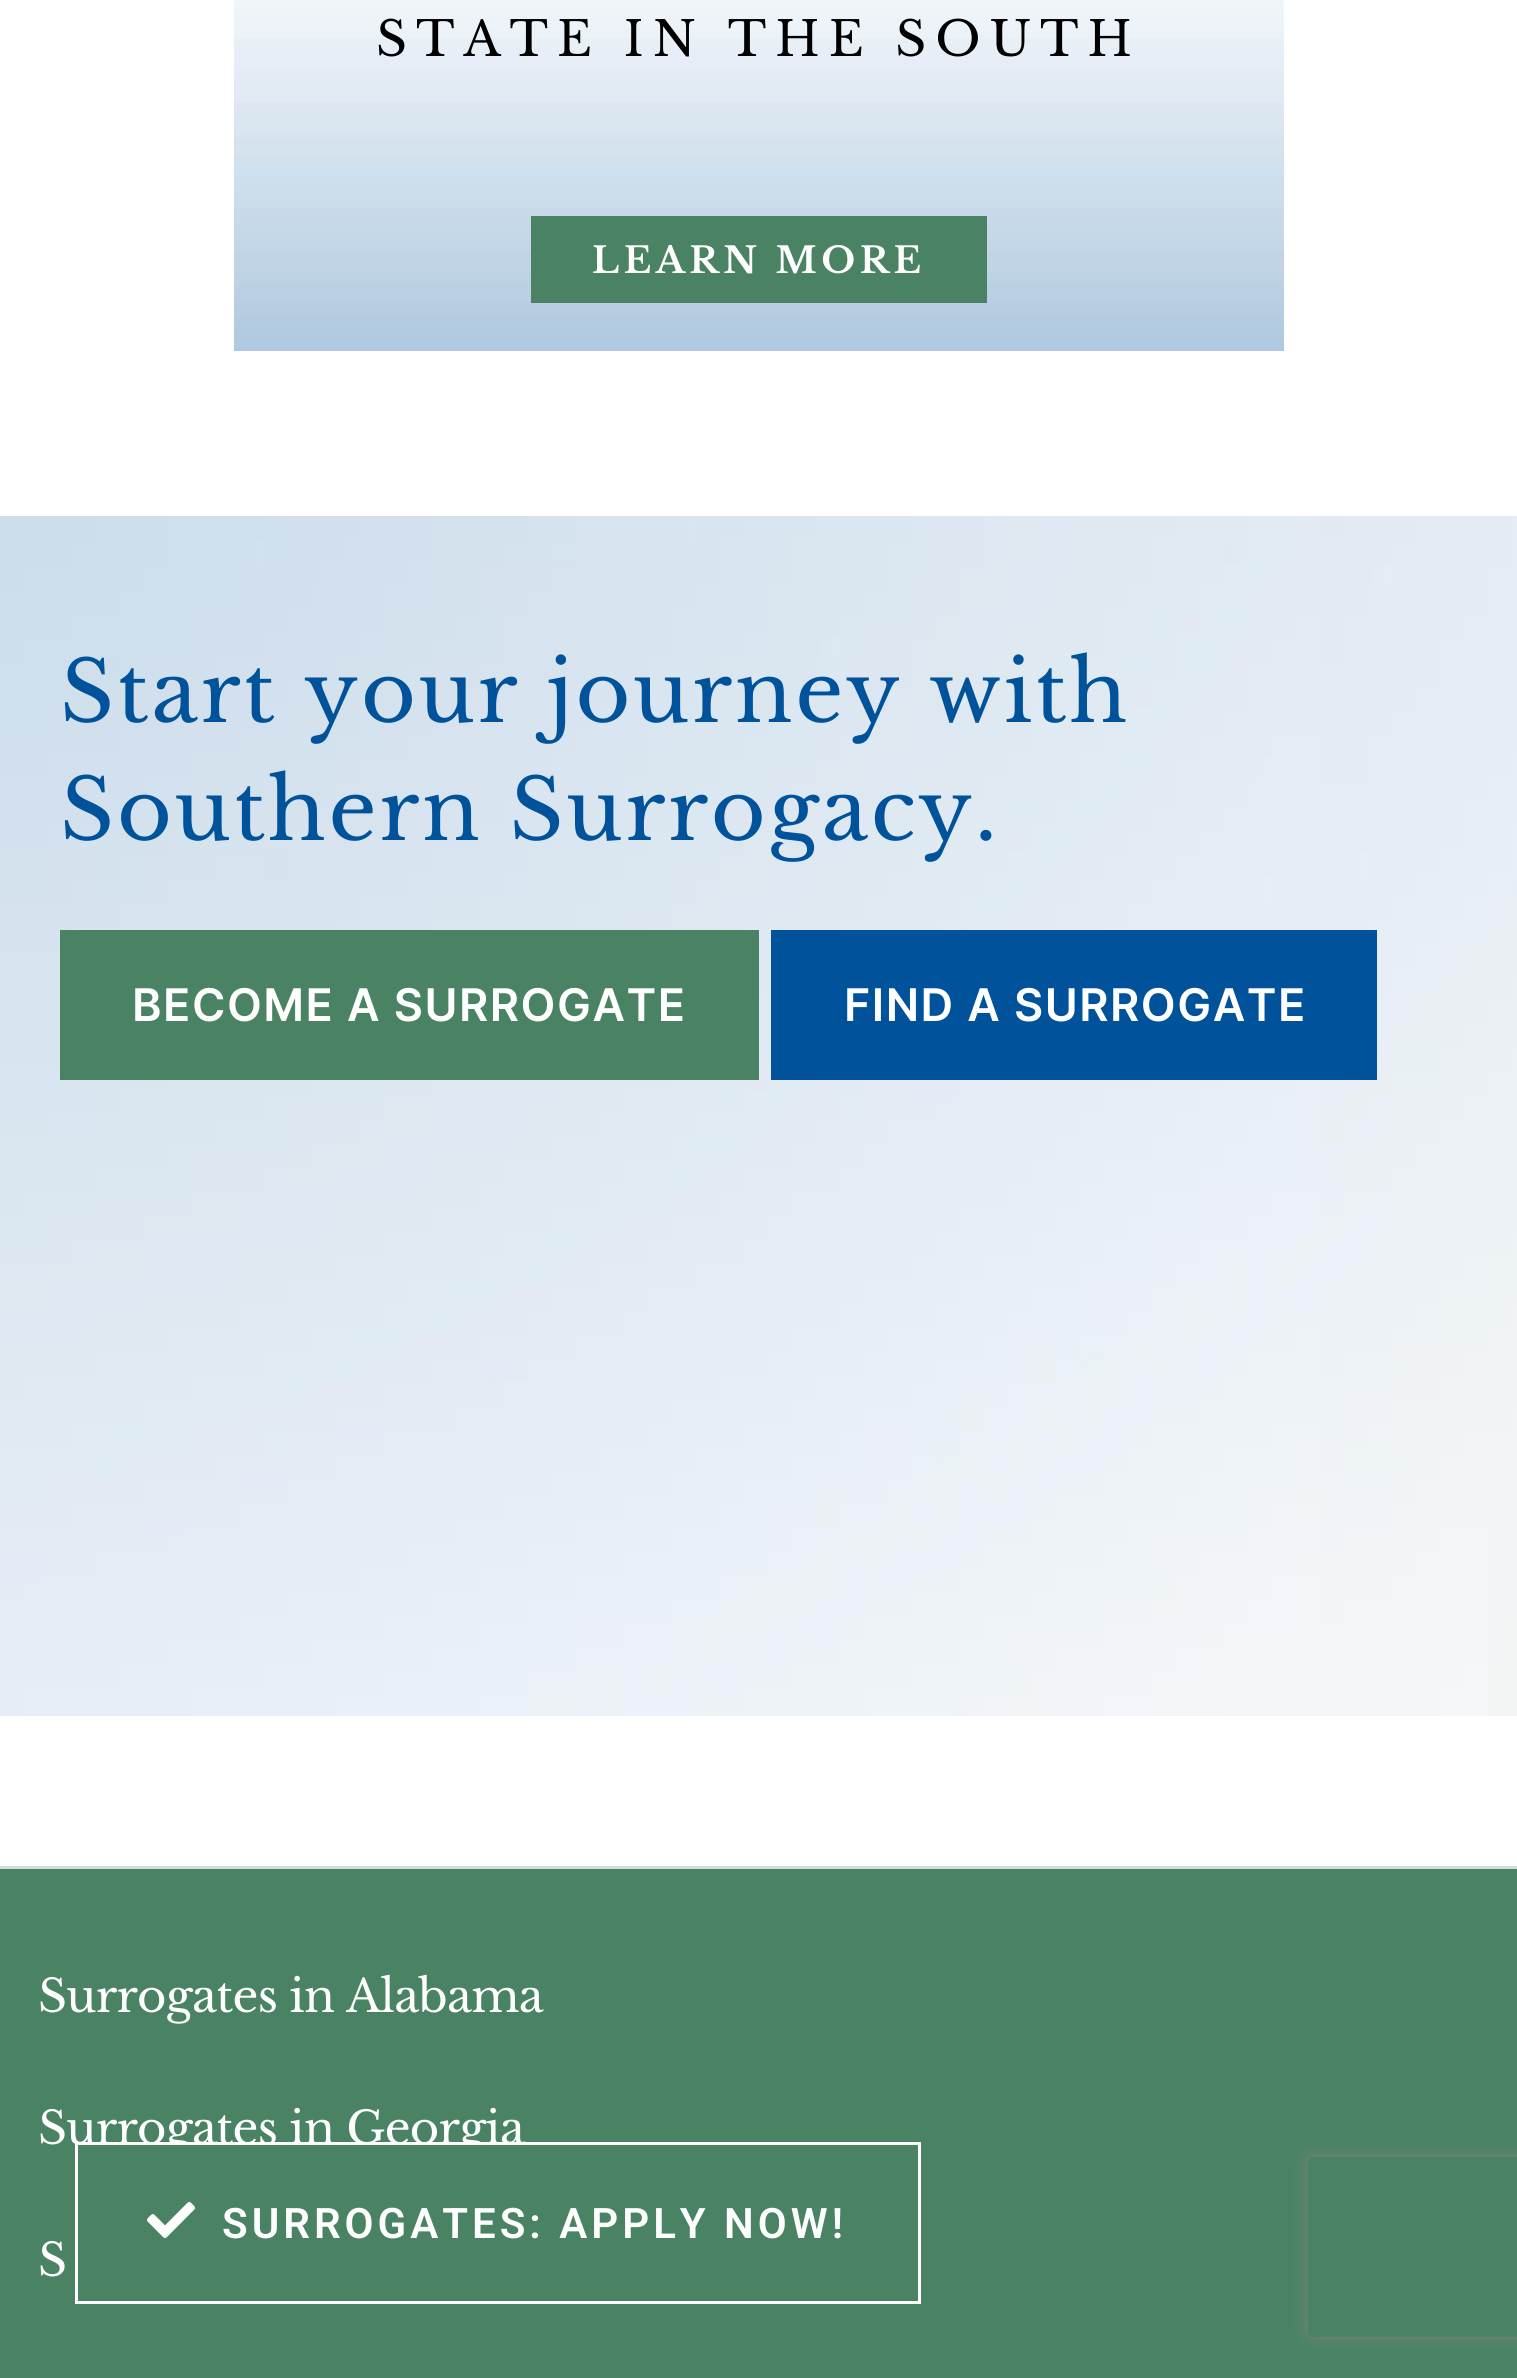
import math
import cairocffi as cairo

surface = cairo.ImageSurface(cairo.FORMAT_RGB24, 1517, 2378)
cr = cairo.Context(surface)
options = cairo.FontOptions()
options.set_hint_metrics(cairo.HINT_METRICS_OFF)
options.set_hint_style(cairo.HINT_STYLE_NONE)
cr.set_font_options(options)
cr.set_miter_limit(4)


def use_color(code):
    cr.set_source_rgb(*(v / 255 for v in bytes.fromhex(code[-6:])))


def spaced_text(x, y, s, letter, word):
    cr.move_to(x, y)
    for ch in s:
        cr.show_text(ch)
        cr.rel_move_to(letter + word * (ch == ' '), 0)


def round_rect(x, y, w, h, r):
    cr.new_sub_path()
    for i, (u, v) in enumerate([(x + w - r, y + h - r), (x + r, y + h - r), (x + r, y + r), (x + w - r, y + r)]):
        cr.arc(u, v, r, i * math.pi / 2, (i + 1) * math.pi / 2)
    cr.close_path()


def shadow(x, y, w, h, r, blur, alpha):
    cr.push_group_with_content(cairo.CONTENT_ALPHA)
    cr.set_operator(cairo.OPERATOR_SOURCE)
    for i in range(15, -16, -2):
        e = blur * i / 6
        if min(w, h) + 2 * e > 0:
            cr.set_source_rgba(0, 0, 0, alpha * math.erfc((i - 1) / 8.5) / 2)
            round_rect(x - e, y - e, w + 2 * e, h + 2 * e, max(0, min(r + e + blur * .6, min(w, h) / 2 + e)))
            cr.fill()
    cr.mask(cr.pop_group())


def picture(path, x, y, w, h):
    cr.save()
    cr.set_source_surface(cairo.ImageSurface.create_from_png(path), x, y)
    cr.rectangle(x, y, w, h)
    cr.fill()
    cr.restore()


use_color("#ffffff")
cr.paint()
picture("img1.png", 234, 0, 1050, 351)
cr.select_font_face("Libre Baskerville")
cr.set_font_size(48)
use_color("#000000")
spaced_text(376, 56, "STATE IN THE SOUTH", 9, 0)
use_color("#498363")
cr.rectangle(531, 216, 456, 87)
cr.fill()
cr.select_font_face("Libre Baskerville", cairo.FONT_SLANT_NORMAL, cairo.FONT_WEIGHT_BOLD)
cr.set_font_size(36)
use_color("#ffffff")
spaced_text(592, 273, "LEARN MORE", 4.5, 0)
picture("img2.png", 0, 516, 1517, 1200)
cr.select_font_face("Libre Baskerville")
cr.set_font_size(84)
use_color("#00529b")
spaced_text(60, 722, "Start your journey with", 2.7, 0)
spaced_text(60, 840, "Southern Surrogacy.", 2.7, 0)
use_color("#498363")
cr.rectangle(60, 930, 699, 150)
cr.fill()
cr.select_font_face("Inter SemiBold")
cr.set_font_size(45)
use_color("#ffffff")
spaced_text(132, 1021, "BECOME A SURROGATE", 1.5, 0)
use_color("#00529b")
cr.rectangle(771, 930, 606, 150)
cr.fill()
use_color("#ffffff")
spaced_text(844, 1021, "FIND A SURROGATE", 1.5, 0)
use_color("#498363")
cr.rectangle(0, 1869, 1517, 509)
cr.fill()
use_color("#dbdbdb")
cr.rectangle(0, 1866, 1517, 3)
cr.fill()
cr.select_font_face("Libre Baskerville")
use_color("#ffffff")
spaced_text(38, 2012, "Surrogates in Alabama", -0.75, 0)
spaced_text(38, 2144, "Surrogates in Georgia", -0.75, 0)
spaced_text(38, 2276, "S", -0.75, 0)
cr.save()
cr.set_fill_rule(cairo.FILL_RULE_EVEN_ODD)
cr.new_path()
cr.move_to(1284, 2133)
cr.line_to(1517, 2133)
cr.line_to(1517, 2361)
cr.line_to(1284, 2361)
cr.close_path()
cr.move_to(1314, 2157)
cr.line_to(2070, 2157)
cr.curve_to(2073.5, 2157, 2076, 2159.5, 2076, 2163)
cr.line_to(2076, 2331)
cr.curve_to(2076, 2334.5, 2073.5, 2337, 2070, 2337)
cr.line_to(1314, 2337)
cr.curve_to(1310.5, 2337, 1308, 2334.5, 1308, 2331)
cr.line_to(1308, 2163)
cr.curve_to(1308, 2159.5, 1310.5, 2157, 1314, 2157)
cr.close_path()
cr.clip()
use_color("#808080")
shadow(1308, 2157, 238, 180, 6, 7.5, 1)
cr.restore()
use_color("#498363")
cr.rectangle(167, 2145, 318, 11)
cr.fill()
cr.rectangle(76.5, 2143.5, 843, 159)
use_color("#ffffff")
cr.set_line_width(3)
cr.stroke()
picture("img3.png", 147, 2202, 48, 36)
cr.select_font_face("Roboto SemiBold")
cr.set_font_size(42)
spaced_text(222, 2238, "SURROGATES: APPLY NOW!", 4, 0)
surface.write_to_png("result.png")
